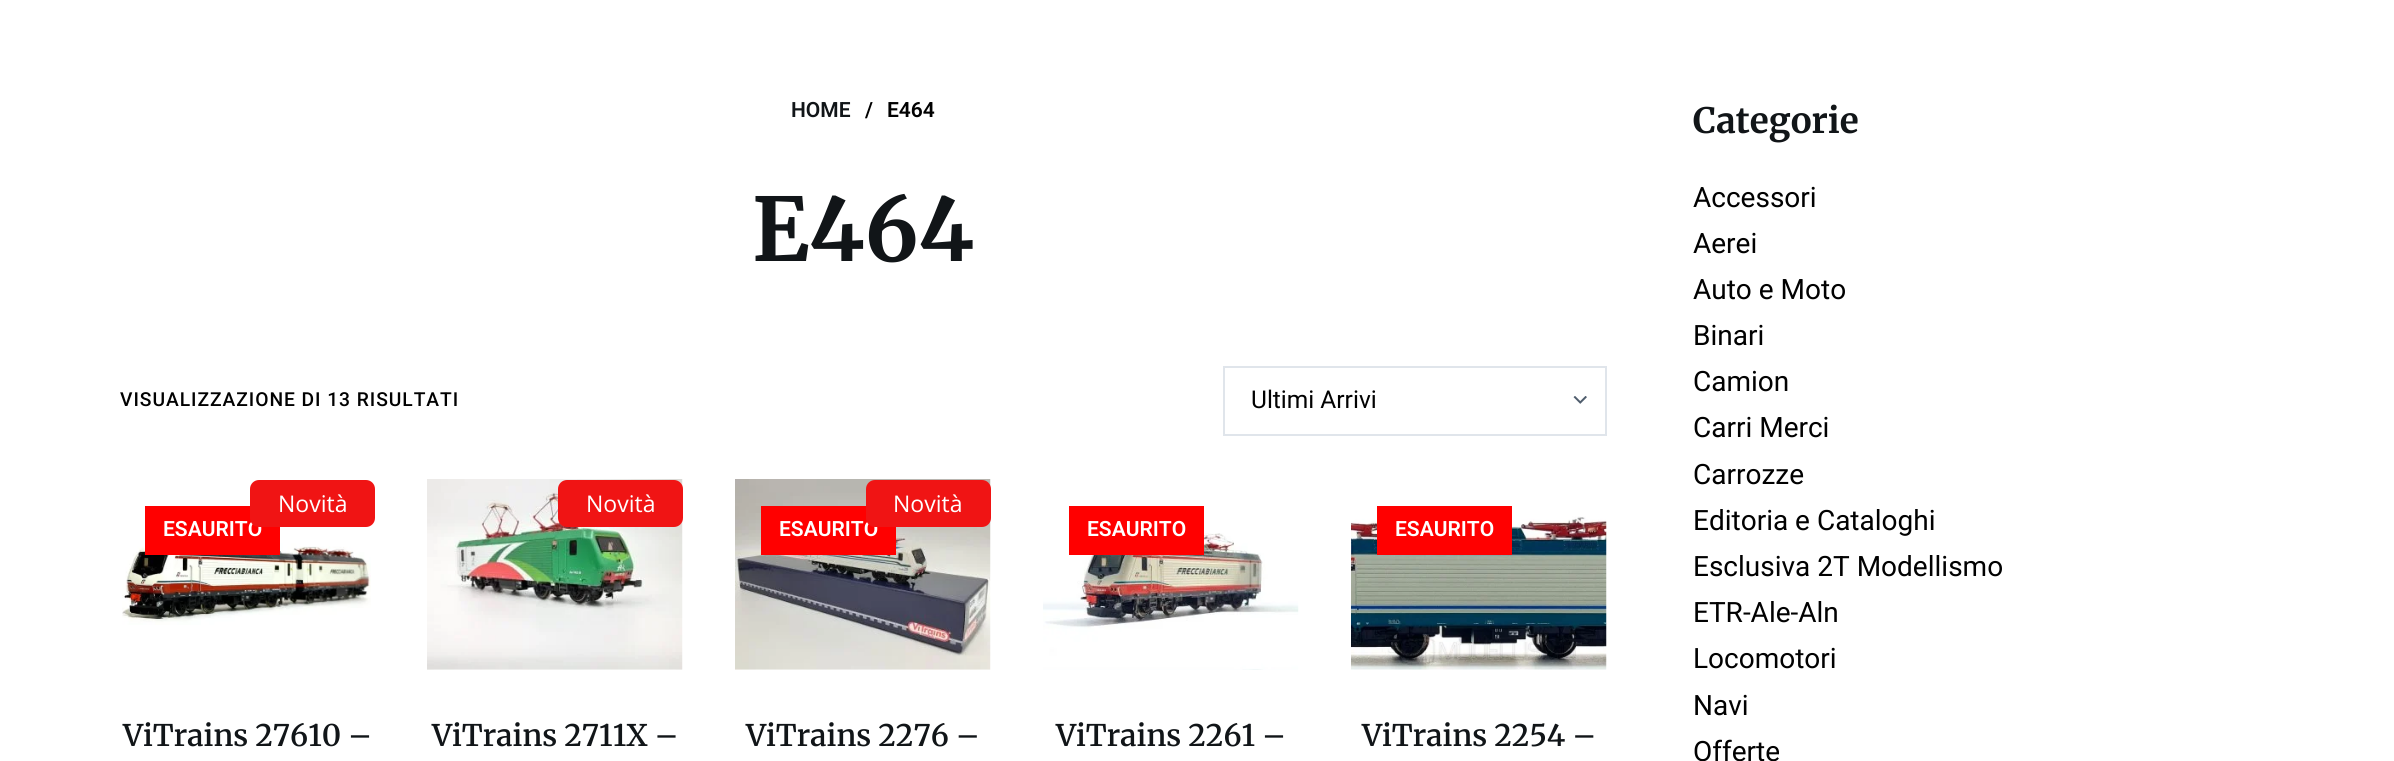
import math
import cairocffi as cairo

surface = cairo.ImageSurface(cairo.FORMAT_RGB24, 2394, 761)
cr = cairo.Context(surface)
options = cairo.FontOptions()
options.set_hint_metrics(cairo.HINT_METRICS_OFF)
options.set_hint_style(cairo.HINT_STYLE_NONE)
cr.set_font_options(options)
cr.set_miter_limit(4)


def use_color(code):
    cr.set_source_rgb(*(v / 255 for v in bytes.fromhex(code[-6:])))


def spaced_text(x, y, s, letter, word):
    cr.move_to(x, y)
    for ch in s:
        cr.show_text(ch)
        cr.rel_move_to(letter + word * (ch == ' '), 0)


def round_rect(x, y, w, h, r):
    cr.new_sub_path()
    for i, (u, v) in enumerate([(x + w - r, y + h - r), (x + r, y + h - r), (x + r, y + r), (x + w - r, y + r)]):
        cr.arc(u, v, r, i * math.pi / 2, (i + 1) * math.pi / 2)
    cr.close_path()


def picture(path, x, y, w, h):
    cr.save()
    cr.set_source_surface(cairo.ImageSurface.create_from_png(path), x, y)
    cr.rectangle(x, y, w, h)
    cr.fill()
    cr.restore()


use_color("#ffffff")
cr.paint()
cr.select_font_face("Roboto SemiBold")
cr.set_font_size(21)
use_color("#111518")
cr.move_to(791, 117)
cr.show_text("HOME")
use_color("#010101")
cr.move_to(865, 117)
cr.show_text("/")
cr.move_to(887, 117)
cr.show_text("E464")
cr.select_font_face("Merriweather", cairo.FONT_SLANT_NORMAL, cairo.FONT_WEIGHT_BOLD)
cr.set_font_size(87.5)
use_color("#111518")
cr.move_to(752, 261)
cr.show_text("E464")
cr.select_font_face("Roboto Medium")
cr.set_font_size(19.25)
use_color("#010101")
spaced_text(120, 406, "VISUALIZZAZIONE DI 13 RISULTATI", 0.95, 0)
picture("img1.png", 1573, 396, 14, 8)
cr.rectangle(1224, 367, 382, 68)
use_color("#e0e5eb")
cr.stroke()
cr.select_font_face("Roboto")
cr.set_font_size(24.5)
use_color("#010101")
cr.move_to(1251, 408)
cr.show_text("Ultimi Arrivi")
picture("img2.png", 122, 534, 249, 91)
use_color("#ff0000")
cr.rectangle(145, 506, 135, 49)
cr.fill()
cr.select_font_face("Roboto SemiBold")
cr.set_font_size(21)
use_color("#ffffff")
cr.move_to(163, 536)
cr.show_text("ESAURITO")
use_color("#f01414")
round_rect(250, 480, 125, 47, 9)
cr.fill()
cr.select_font_face("Open Sans")
cr.set_font_size(23)
use_color("#ffffff")
cr.move_to(278, 512)
cr.show_text("Novità")
cr.select_font_face("Merriweather SemiBold")
cr.set_font_size(29.75)
use_color("#111518")
cr.move_to(123, 746)
cr.show_text("ViTrains 27610 –")
picture("img3.png", 427, 479, 256, 191)
use_color("#f01414")
round_rect(558, 480, 125, 47, 9)
cr.fill()
cr.select_font_face("Open Sans")
cr.set_font_size(23)
use_color("#ffffff")
cr.move_to(586, 512)
cr.show_text("Novità")
cr.select_font_face("Merriweather SemiBold")
cr.set_font_size(29.75)
use_color("#111518")
cr.move_to(432, 746)
cr.show_text("ViTrains 2711X –")
picture("img4.png", 735, 479, 256, 191)
use_color("#ff0000")
cr.rectangle(761, 506, 135, 49)
cr.fill()
cr.select_font_face("Roboto SemiBold")
cr.set_font_size(21)
use_color("#ffffff")
cr.move_to(779, 536)
cr.show_text("ESAURITO")
use_color("#f01414")
round_rect(866, 480, 125, 47, 9)
cr.fill()
cr.select_font_face("Open Sans")
cr.set_font_size(23)
use_color("#ffffff")
cr.move_to(893, 512)
cr.show_text("Novità")
cr.select_font_face("Merriweather SemiBold")
cr.set_font_size(29.75)
use_color("#111518")
cr.move_to(746, 746)
cr.show_text("ViTrains 2276 –")
picture("img5.png", 1043, 533, 256, 137)
use_color("#ff0000")
cr.rectangle(1069, 506, 135, 49)
cr.fill()
cr.select_font_face("Roboto SemiBold")
cr.set_font_size(21)
use_color("#ffffff")
cr.move_to(1087, 536)
cr.show_text("ESAURITO")
cr.select_font_face("Merriweather SemiBold")
cr.set_font_size(29.75)
use_color("#111518")
cr.move_to(1056, 746)
cr.show_text("ViTrains 2261 –")
picture("img6.png", 1351, 516, 256, 154)
use_color("#ff0000")
cr.rectangle(1377, 506, 135, 49)
cr.fill()
cr.select_font_face("Roboto SemiBold")
cr.set_font_size(21)
use_color("#ffffff")
cr.move_to(1395, 536)
cr.show_text("ESAURITO")
cr.select_font_face("Merriweather SemiBold")
cr.set_font_size(29.75)
use_color("#111518")
cr.move_to(1362, 746)
cr.show_text("ViTrains 2254 –")
cr.select_font_face("Merriweather", cairo.FONT_SLANT_NORMAL, cairo.FONT_WEIGHT_BOLD)
cr.set_font_size(35)
cr.move_to(1693, 133)
cr.show_text("Categorie")
cr.select_font_face("Roboto")
cr.set_font_size(28)
use_color("#010101")
cr.move_to(1693, 207)
cr.show_text("Accessori")
cr.move_to(1693, 253)
cr.show_text("Aerei")
cr.move_to(1693, 299)
cr.show_text("Auto e Moto")
cr.move_to(1693, 345)
cr.show_text("Binari")
cr.move_to(1693, 391)
cr.show_text("Camion")
cr.move_to(1693, 437)
cr.show_text("Carri Merci")
cr.move_to(1693, 484)
cr.show_text("Carrozze")
cr.move_to(1693, 530)
cr.show_text("Editoria e Cataloghi")
cr.move_to(1693, 576)
cr.show_text("Esclusiva 2T Modellismo")
cr.move_to(1693, 622)
cr.show_text("ETR-Ale-Aln")
cr.move_to(1693, 668)
cr.show_text("Locomotori")
cr.move_to(1693, 715)
cr.show_text("Navi")
cr.move_to(1693, 761)
cr.show_text("Offerte")
surface.write_to_png("result.png")
